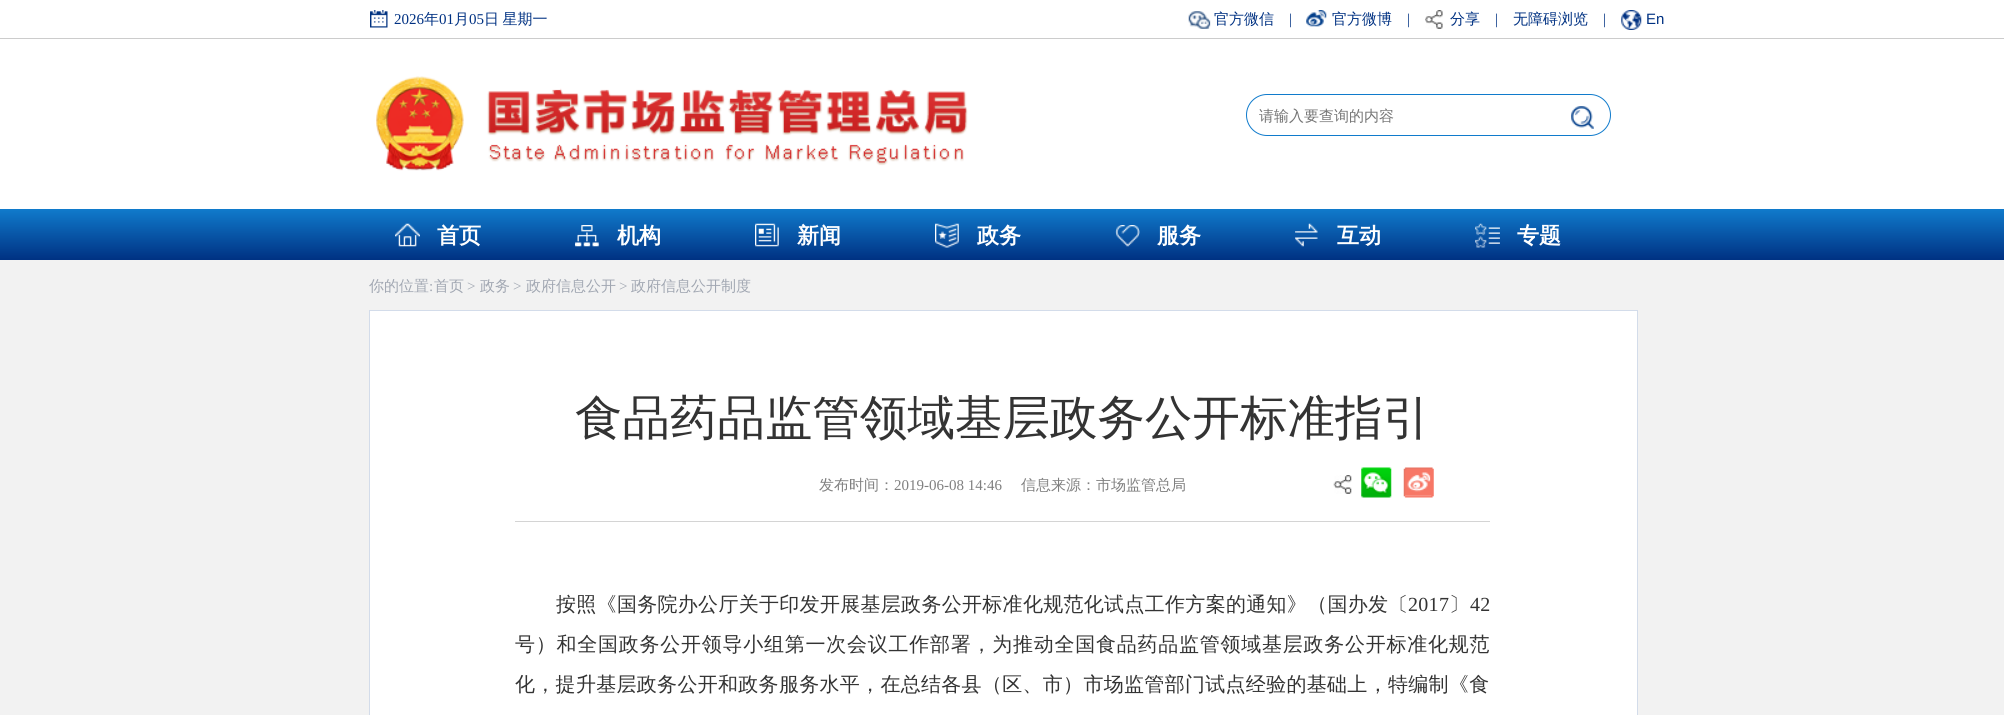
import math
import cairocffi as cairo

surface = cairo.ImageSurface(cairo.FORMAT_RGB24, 2004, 715)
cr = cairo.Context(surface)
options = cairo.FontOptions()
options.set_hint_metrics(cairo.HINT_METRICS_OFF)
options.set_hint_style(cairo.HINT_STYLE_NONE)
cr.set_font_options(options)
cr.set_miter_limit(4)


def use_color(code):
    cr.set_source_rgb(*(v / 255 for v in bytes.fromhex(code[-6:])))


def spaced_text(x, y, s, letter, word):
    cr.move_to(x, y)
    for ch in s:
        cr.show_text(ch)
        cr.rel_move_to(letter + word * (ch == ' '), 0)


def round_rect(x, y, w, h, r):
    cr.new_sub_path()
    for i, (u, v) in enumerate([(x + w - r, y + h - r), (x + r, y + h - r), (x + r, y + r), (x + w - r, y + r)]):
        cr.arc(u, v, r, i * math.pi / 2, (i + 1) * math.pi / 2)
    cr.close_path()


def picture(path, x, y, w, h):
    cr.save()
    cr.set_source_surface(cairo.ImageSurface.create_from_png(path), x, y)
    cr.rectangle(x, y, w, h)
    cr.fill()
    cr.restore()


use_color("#ffffff")
cr.paint()
use_color("#cccccc")
cr.rectangle(0, 38, 2004, 1)
cr.fill()
picture("img1.png", 370, 10, 18, 18)
cr.select_font_face("Liberation Serif")
cr.set_font_size(15)
use_color("#003182")
cr.move_to(394, 24)
cr.show_text("2026")
cr.select_font_face("WenQuanYi Zen Hei Medium")
cr.move_to(424, 24)
cr.show_text("年")
cr.select_font_face("Liberation Serif")
cr.move_to(439, 24)
cr.show_text("01")
cr.select_font_face("WenQuanYi Zen Hei Medium")
cr.move_to(454, 24)
cr.show_text("月")
cr.select_font_face("Liberation Serif")
cr.move_to(469, 24)
cr.show_text("05")
cr.select_font_face("WenQuanYi Zen Hei Medium")
spaced_text(484, 24, "日 星期一", 0, -1)
picture("img2.png", 1188, 11, 23, 18)
cr.move_to(1214, 24)
cr.show_text("官方微信")
cr.select_font_face("Liberation Serif")
cr.move_to(1289, 24)
cr.show_text("|")
picture("img3.png", 1306, 10, 21, 17)
cr.select_font_face("WenQuanYi Zen Hei Medium")
cr.move_to(1332, 24)
cr.show_text("官方微博")
cr.select_font_face("Liberation Serif")
cr.move_to(1407, 24)
cr.show_text("|")
picture("img4.png", 1425, 10, 18, 19)
cr.select_font_face("WenQuanYi Zen Hei Medium")
cr.move_to(1450, 24)
cr.show_text("分享")
cr.select_font_face("Liberation Serif")
cr.move_to(1495, 24)
cr.show_text("|")
cr.select_font_face("WenQuanYi Zen Hei Medium")
cr.move_to(1513, 24)
cr.show_text("无障碍浏览")
cr.select_font_face("Liberation Serif")
cr.move_to(1603, 24)
cr.show_text("|")
picture("img5.png", 1621, 10, 21, 20)
cr.select_font_face("Liberation Sans")
cr.move_to(1646, 24)
cr.show_text("En")
picture("img6.png", 376, 76, 592, 95)
round_rect(1246.5, 94.5, 364, 41, 20.5)
use_color("#107bcc")
cr.set_line_width(1)
cr.stroke()
cr.select_font_face("WenQuanYi Zen Hei Medium")
use_color("#757575")
cr.move_to(1259, 121)
cr.show_text("请输入要查询的内容")
picture("img7.png", 1571, 106, 23, 23)
gradient = cairo.LinearGradient(1003, 209, 1003, 260)
gradient.add_color_stop_rgba(0, 0.063, 0.482, 0.8, 1)
gradient.add_color_stop_rgba(1, 0, 0.192, 0.51, 1)
cr.set_source(gradient)
cr.rectangle(0, 209, 2004, 51)
cr.fill()
picture("img8.png", 395, 223, 25, 24)
cr.select_font_face("WenQuanYi Zen Hei", cairo.FONT_SLANT_NORMAL, cairo.FONT_WEIGHT_BOLD)
cr.set_font_size(22)
use_color("#ffffff")
cr.move_to(437, 243)
cr.show_text("首页")
picture("img9.png", 575, 225, 24, 22)
cr.move_to(617, 243)
cr.show_text("机构")
picture("img10.png", 755, 223, 24, 24)
cr.move_to(797, 243)
cr.show_text("新闻")
picture("img11.png", 935, 223, 24, 25)
cr.move_to(977, 243)
cr.show_text("政务")
picture("img12.png", 1115, 225, 25, 22)
cr.move_to(1157, 243)
cr.show_text("服务")
picture("img13.png", 1295, 223, 23, 24)
cr.move_to(1337, 243)
cr.show_text("互动")
picture("img14.png", 1475, 223, 25, 25)
cr.move_to(1517, 243)
cr.show_text("专题")
use_color("#f2f2f2")
cr.rectangle(0, 260, 2004, 455)
cr.fill()
cr.select_font_face("WenQuanYi Zen Hei Medium")
cr.set_font_size(15)
use_color("#a1a7b2")
cr.move_to(369, 291)
cr.show_text("你的位置")
cr.select_font_face("Liberation Serif")
cr.move_to(429, 291)
cr.show_text(":")
cr.select_font_face("WenQuanYi Zen Hei Medium")
cr.move_to(434, 291)
cr.show_text("首页")
cr.select_font_face("Liberation Serif")
cr.move_to(467, 291)
cr.show_text(">")
cr.select_font_face("WenQuanYi Zen Hei Medium")
cr.move_to(480, 291)
cr.show_text("政务")
cr.select_font_face("Liberation Serif")
cr.move_to(513, 291)
cr.show_text(">")
cr.select_font_face("WenQuanYi Zen Hei Medium")
cr.move_to(526, 291)
cr.show_text("政府信息公开")
cr.select_font_face("Liberation Serif")
cr.move_to(619, 291)
cr.show_text(">")
cr.select_font_face("WenQuanYi Zen Hei Medium")
cr.move_to(631, 291)
cr.show_text("政府信息公开制度")
use_color("#ffffff")
cr.rectangle(369.5, 310.5, 1268, 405)
cr.fill_preserve()
use_color("#d3dcea")
cr.stroke()
cr.set_font_size(47.5)
use_color("#333333")
cr.move_to(575, 434)
cr.show_text("食品药品监管领域基层政务公开标准指引")
cr.set_font_size(15)
use_color("#808080")
cr.move_to(819, 490)
cr.show_text("发布时间：")
cr.select_font_face("Liberation Serif")
cr.move_to(894, 490)
cr.show_text("2019-06-08 14:46")
cr.select_font_face("WenQuanYi Zen Hei Medium")
cr.move_to(1021, 490)
cr.show_text("信息来源：市场监管总局")
picture("img15.png", 1333, 475, 19, 19)
picture("img16.png", 1361, 467, 31, 31)
picture("img17.png", 1403, 467, 31, 31)
use_color("#d4d4d4")
cr.rectangle(515, 521, 975, 1)
cr.fill()
cr.set_font_size(20)
use_color("#333333")
spaced_text(556, 611, "按照《国务院办公厅关于印发开展基层政务公开标准化规范化试点工作方案的通知》（国办发〔", 0.3, 0)
cr.select_font_face("Liberation Serif")
spaced_text(1408, 611, "2017", 0.3, 0)
cr.select_font_face("WenQuanYi Zen Hei Medium")
spaced_text(1449, 611, "〕", 0.3, 0)
cr.select_font_face("Liberation Serif")
spaced_text(1470, 611, "42", 0.3, 0)
cr.select_font_face("WenQuanYi Zen Hei Medium")
spaced_text(515, 651, "号）和全国政务公开领导小组第一次会议工作部署，为推动全国食品药品监管领域基层政务公开标准化规范", 0.75, 0)
spaced_text(515, 691, "化，提升基层政务公开和政务服务水平，在总结各县（区、市）市场监管部门试点经验的基础上，特编制《食", 0.3, 0)
surface.write_to_png("result.png")
